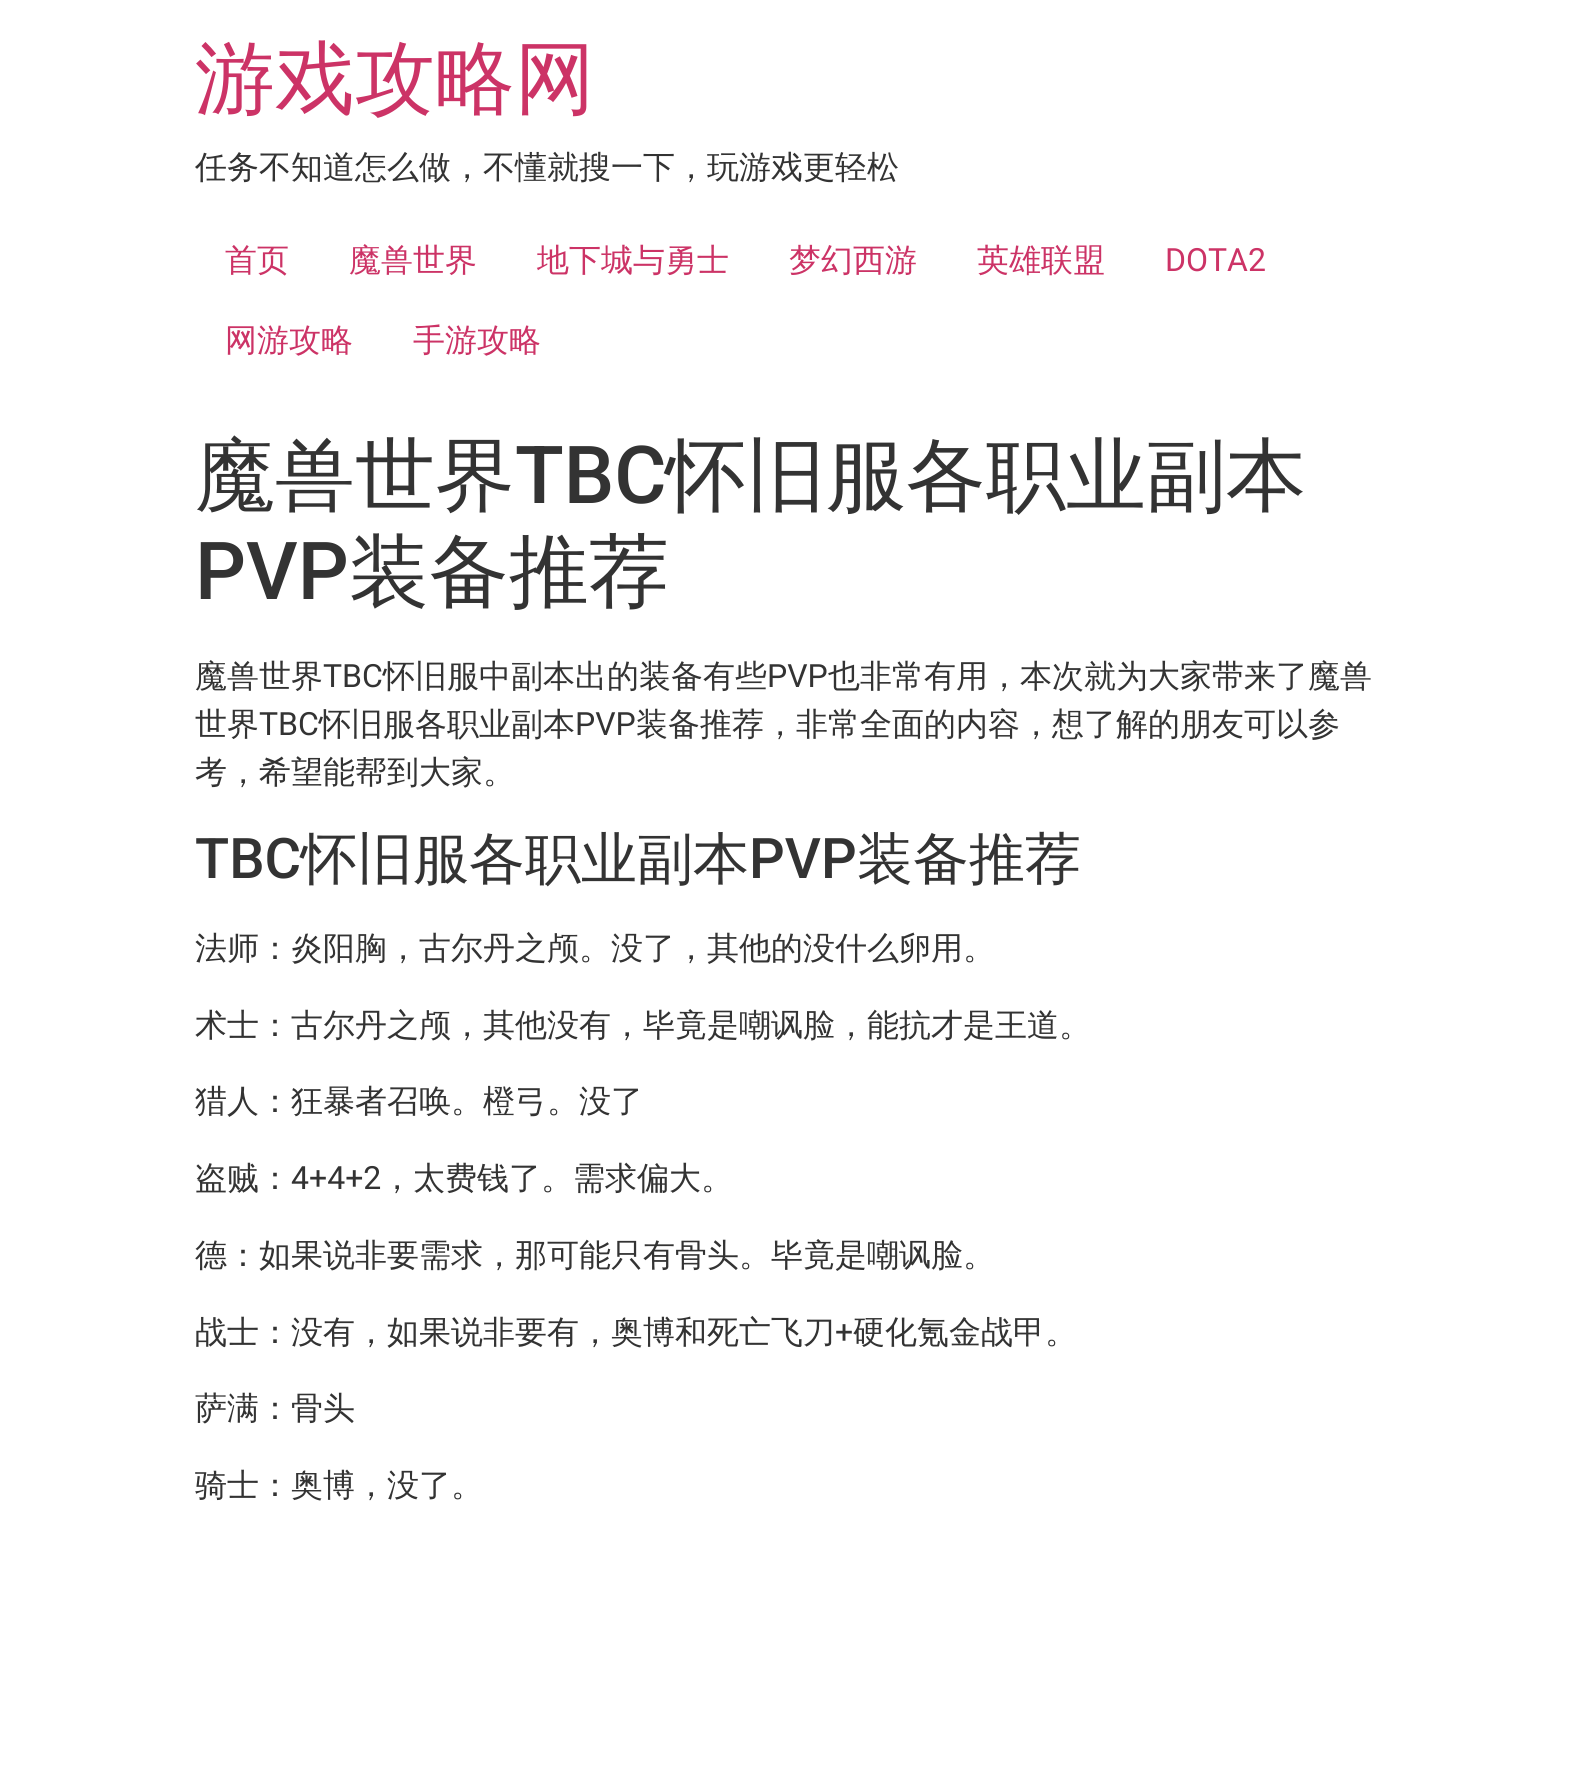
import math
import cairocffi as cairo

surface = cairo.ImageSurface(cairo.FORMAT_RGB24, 1590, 1785)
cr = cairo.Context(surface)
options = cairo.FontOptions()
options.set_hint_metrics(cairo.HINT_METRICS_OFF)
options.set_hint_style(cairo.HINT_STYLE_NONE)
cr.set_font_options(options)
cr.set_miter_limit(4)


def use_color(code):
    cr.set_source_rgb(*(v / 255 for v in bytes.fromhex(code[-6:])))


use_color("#ffffff")
cr.paint()
cr.select_font_face("WenQuanYi Zen Hei Medium")
cr.set_font_size(80)
use_color("#cc3366")
cr.move_to(195, 106)
cr.show_text("游戏攻略网")
cr.set_font_size(32)
use_color("#333333")
cr.move_to(195, 178)
cr.show_text("任务不知道怎么做，不懂就搜一下，玩游戏更轻松")
use_color("#cc3366")
cr.move_to(225, 271)
cr.show_text("首页")
cr.move_to(349, 271)
cr.show_text("魔兽世界")
cr.move_to(537, 271)
cr.show_text("地下城与勇士")
cr.move_to(789, 271)
cr.show_text("梦幻西游")
cr.move_to(977, 271)
cr.show_text("英雄联盟")
cr.select_font_face("Roboto")
cr.move_to(1165, 271)
cr.show_text("DOTA2")
cr.select_font_face("WenQuanYi Zen Hei Medium")
cr.move_to(225, 351)
cr.show_text("网游攻略")
cr.move_to(413, 351)
cr.show_text("手游攻略")
cr.set_font_size(80)
use_color("#333333")
cr.move_to(195, 503)
cr.show_text("魔兽世界")
cr.select_font_face("Roboto Medium")
cr.move_to(515, 503)
cr.show_text("TBC")
cr.select_font_face("WenQuanYi Zen Hei Medium")
cr.move_to(666, 503)
cr.show_text("怀旧服各职业副本")
cr.select_font_face("Roboto Medium")
cr.move_to(195, 599)
cr.show_text("PVP")
cr.select_font_face("WenQuanYi Zen Hei Medium")
cr.move_to(349, 599)
cr.show_text("装备推荐")
cr.set_font_size(32)
cr.move_to(195, 687)
cr.show_text("魔兽世界")
cr.select_font_face("Roboto")
cr.move_to(323, 687)
cr.show_text("TBC")
cr.select_font_face("WenQuanYi Zen Hei Medium")
cr.move_to(383, 687)
cr.show_text("怀旧服中副本出的装备有些")
cr.select_font_face("Roboto")
cr.move_to(767, 687)
cr.show_text("PVP")
cr.select_font_face("WenQuanYi Zen Hei Medium")
cr.move_to(828, 687)
cr.show_text("也非常有用，本次就为大家带来了魔兽")
cr.move_to(195, 735)
cr.show_text("世界")
cr.select_font_face("Roboto")
cr.move_to(259, 735)
cr.show_text("TBC")
cr.select_font_face("WenQuanYi Zen Hei Medium")
cr.move_to(319, 735)
cr.show_text("怀旧服各职业副本")
cr.select_font_face("Roboto")
cr.move_to(575, 735)
cr.show_text("PVP")
cr.select_font_face("WenQuanYi Zen Hei Medium")
cr.move_to(636, 735)
cr.show_text("装备推荐，非常全面的内容，想了解的朋友可以参")
cr.move_to(195, 783)
cr.show_text("考，希望能帮到大家。")
cr.select_font_face("Roboto Medium")
cr.set_font_size(56)
cr.move_to(195, 878)
cr.show_text("TBC")
cr.select_font_face("WenQuanYi Zen Hei Medium")
cr.move_to(301, 878)
cr.show_text("怀旧服各职业副本")
cr.select_font_face("Roboto Medium")
cr.move_to(749, 878)
cr.show_text("PVP")
cr.select_font_face("WenQuanYi Zen Hei Medium")
cr.move_to(857, 878)
cr.show_text("装备推荐")
cr.set_font_size(32)
cr.move_to(195, 959)
cr.show_text("法师：炎阳胸，古尔丹之颅。没了，其他的没什么卵用。")
cr.move_to(195, 1036)
cr.show_text("术士：古尔丹之颅，其他没有，毕竟是嘲讽脸，能抗才是王道。")
cr.move_to(195, 1112)
cr.show_text("猎人：狂暴者召唤。橙弓。没了")
cr.move_to(195, 1189)
cr.show_text("盗贼：")
cr.select_font_face("Roboto")
cr.move_to(291, 1189)
cr.show_text("4+4+2")
cr.select_font_face("WenQuanYi Zen Hei Medium")
cr.move_to(381, 1189)
cr.show_text("，太费钱了。需求偏大。")
cr.move_to(195, 1266)
cr.show_text("德：如果说非要需求，那可能只有骨头。毕竟是嘲讽脸。")
cr.move_to(195, 1343)
cr.show_text("战士：没有，如果说非要有，奥博和死亡飞刀")
cr.select_font_face("Roboto")
cr.move_to(835, 1343)
cr.show_text("+")
cr.select_font_face("WenQuanYi Zen Hei Medium")
cr.move_to(853, 1343)
cr.show_text("硬化氪金战甲。")
cr.move_to(195, 1419)
cr.show_text("萨满：骨头")
cr.move_to(195, 1496)
cr.show_text("骑士：奥博，没了。")
surface.write_to_png("result.png")
